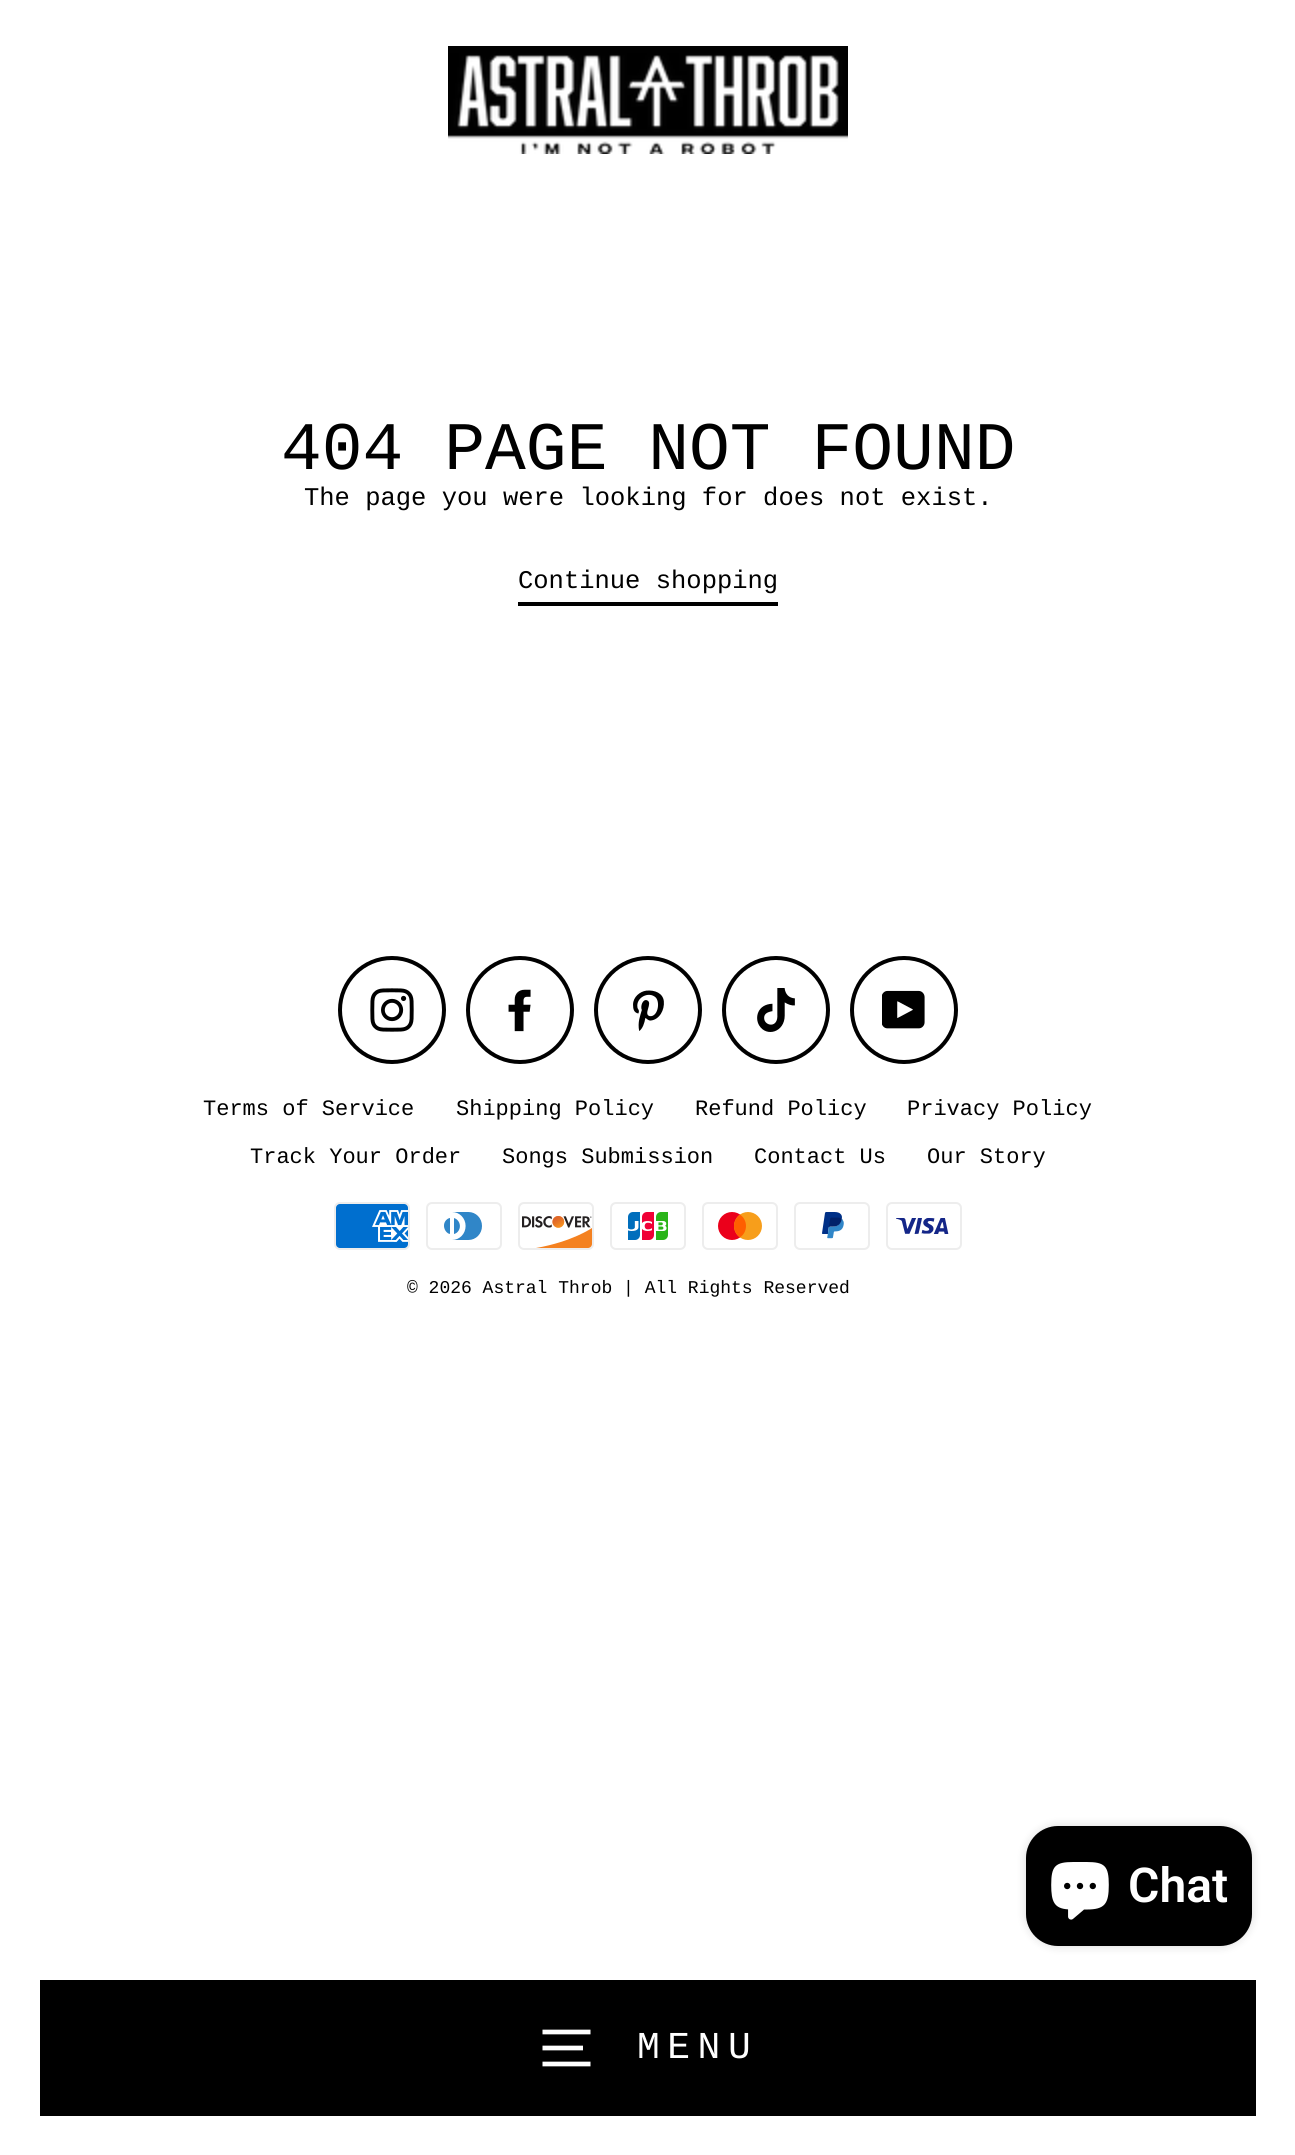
import math
import cairocffi as cairo

surface = cairo.ImageSurface(cairo.FORMAT_RGB24, 1295, 2155)
cr = cairo.Context(surface)
options = cairo.FontOptions()
options.set_hint_metrics(cairo.HINT_METRICS_OFF)
options.set_hint_style(cairo.HINT_STYLE_NONE)
cr.set_font_options(options)
cr.set_miter_limit(4)


def use_color(code):
    cr.set_source_rgb(*(v / 255 for v in bytes.fromhex(code[-6:])))


def spaced_text(x, y, s, letter, word):
    cr.move_to(x, y)
    for ch in s:
        cr.show_text(ch)
        cr.rel_move_to(letter + word * (ch == ' '), 0)


def round_rect(x, y, w, h, r):
    cr.new_sub_path()
    for i, (u, v) in enumerate([(x + w - r, y + h - r), (x + r, y + h - r), (x + r, y + r), (x + w - r, y + r)]):
        cr.arc(u, v, r, i * math.pi / 2, (i + 1) * math.pi / 2)
    cr.close_path()


def shadow(x, y, w, h, r, blur, alpha):
    cr.push_group_with_content(cairo.CONTENT_ALPHA)
    cr.set_operator(cairo.OPERATOR_SOURCE)
    for i in range(15, -16, -2):
        e = blur * i / 6
        if min(w, h) + 2 * e > 0:
            cr.set_source_rgba(0, 0, 0, alpha * math.erfc((i - 1) / 8.5) / 2)
            round_rect(x - e, y - e, w + 2 * e, h + 2 * e, max(0, min(r + e + blur * .6, min(w, h) / 2 + e)))
            cr.fill()
    cr.mask(cr.pop_group())


def picture(path, x, y, w, h):
    cr.save()
    cr.set_source_surface(cairo.ImageSurface.create_from_png(path), x, y)
    cr.rectangle(x, y, w, h)
    cr.fill()
    cr.restore()


use_color("#ffffff")
cr.paint()
cr.select_font_face("Liberation Mono")
cr.set_font_size(68)
use_color("#000000")
cr.move_to(281, 469)
cr.show_text("404 PAGE NOT FOUND")
cr.set_font_size(25.5)
cr.move_to(304, 505)
cr.show_text("The page you were looking for does not exist.")
cr.rectangle(518, 602, 260, 4)
cr.fill()
cr.move_to(518, 588)
cr.show_text("Continue shopping")
cr.new_path()
cr.arc(392, 1010, 52, 0, 2 * math.pi)
cr.set_line_width(4)
cr.stroke()
picture("img1.png", 370, 988, 44, 44)
cr.arc(520, 1010, 52, 0, 2 * math.pi)
cr.stroke()
picture("img2.png", 508, 989, 23, 43)
cr.arc(648, 1010, 52, 0, 2 * math.pi)
cr.stroke()
picture("img3.png", 633, 990, 31, 41)
cr.arc(776, 1010, 52, 0, 2 * math.pi)
cr.stroke()
picture("img4.png", 757, 988, 38, 44)
cr.arc(904, 1010, 52, 0, 2 * math.pi)
cr.stroke()
picture("img5.png", 882, 990, 43, 39)
cr.set_font_size(22)
cr.move_to(203, 1115)
cr.show_text("Terms of Service")
cr.move_to(456, 1115)
cr.show_text("Shipping Policy")
cr.move_to(695, 1115)
cr.show_text("Refund Policy")
cr.move_to(907, 1115)
cr.show_text("Privacy Policy")
cr.move_to(250, 1163)
cr.show_text("Track Your Order")
cr.move_to(502, 1163)
cr.show_text("Songs Submission")
cr.move_to(754, 1163)
cr.show_text("Contact Us")
cr.move_to(927, 1163)
cr.show_text("Our Story")
picture("img6.png", 334, 1202, 76, 48)
picture("img7.png", 426, 1202, 76, 48)
picture("img8.png", 518, 1202, 76, 48)
picture("img9.png", 610, 1202, 76, 48)
picture("img10.png", 702, 1202, 76, 48)
picture("img11.png", 794, 1202, 76, 48)
picture("img12.png", 886, 1202, 76, 48)
cr.set_font_size(18)
cr.move_to(407, 1293)
cr.show_text("© 2026 Astral Throb | All Rights Reserved")
picture("img13.png", 448, 46, 400, 108)
cr.rectangle(40, 1980, 1216, 136)
cr.fill()
cr.new_path()
cr.move_to(542.5, 2032)
cr.line_to(590.5, 2032)
cr.move_to(542.5, 2048)
cr.line_to(583, 2048)
cr.move_to(542.5, 2064)
cr.line_to(590.5, 2064)
use_color("#ffffff")
cr.set_line_width(4.7)
cr.stroke()
cr.set_font_size(38)
spaced_text(637, 2058, "MENU", 7.5, 0)
use_color("#000000")
shadow(1026, 1826, 226, 120, 32, 5, 0.15)
use_color("#000000")
round_rect(1026, 1826, 226, 120, 32)
cr.fill()
picture("img14.png", 1051, 1862, 58, 58)
cr.select_font_face("Roboto SemiBold")
cr.set_font_size(48)
use_color("#ffffff")
cr.move_to(1128, 1902)
cr.show_text("Chat")
surface.write_to_png("result.png")
